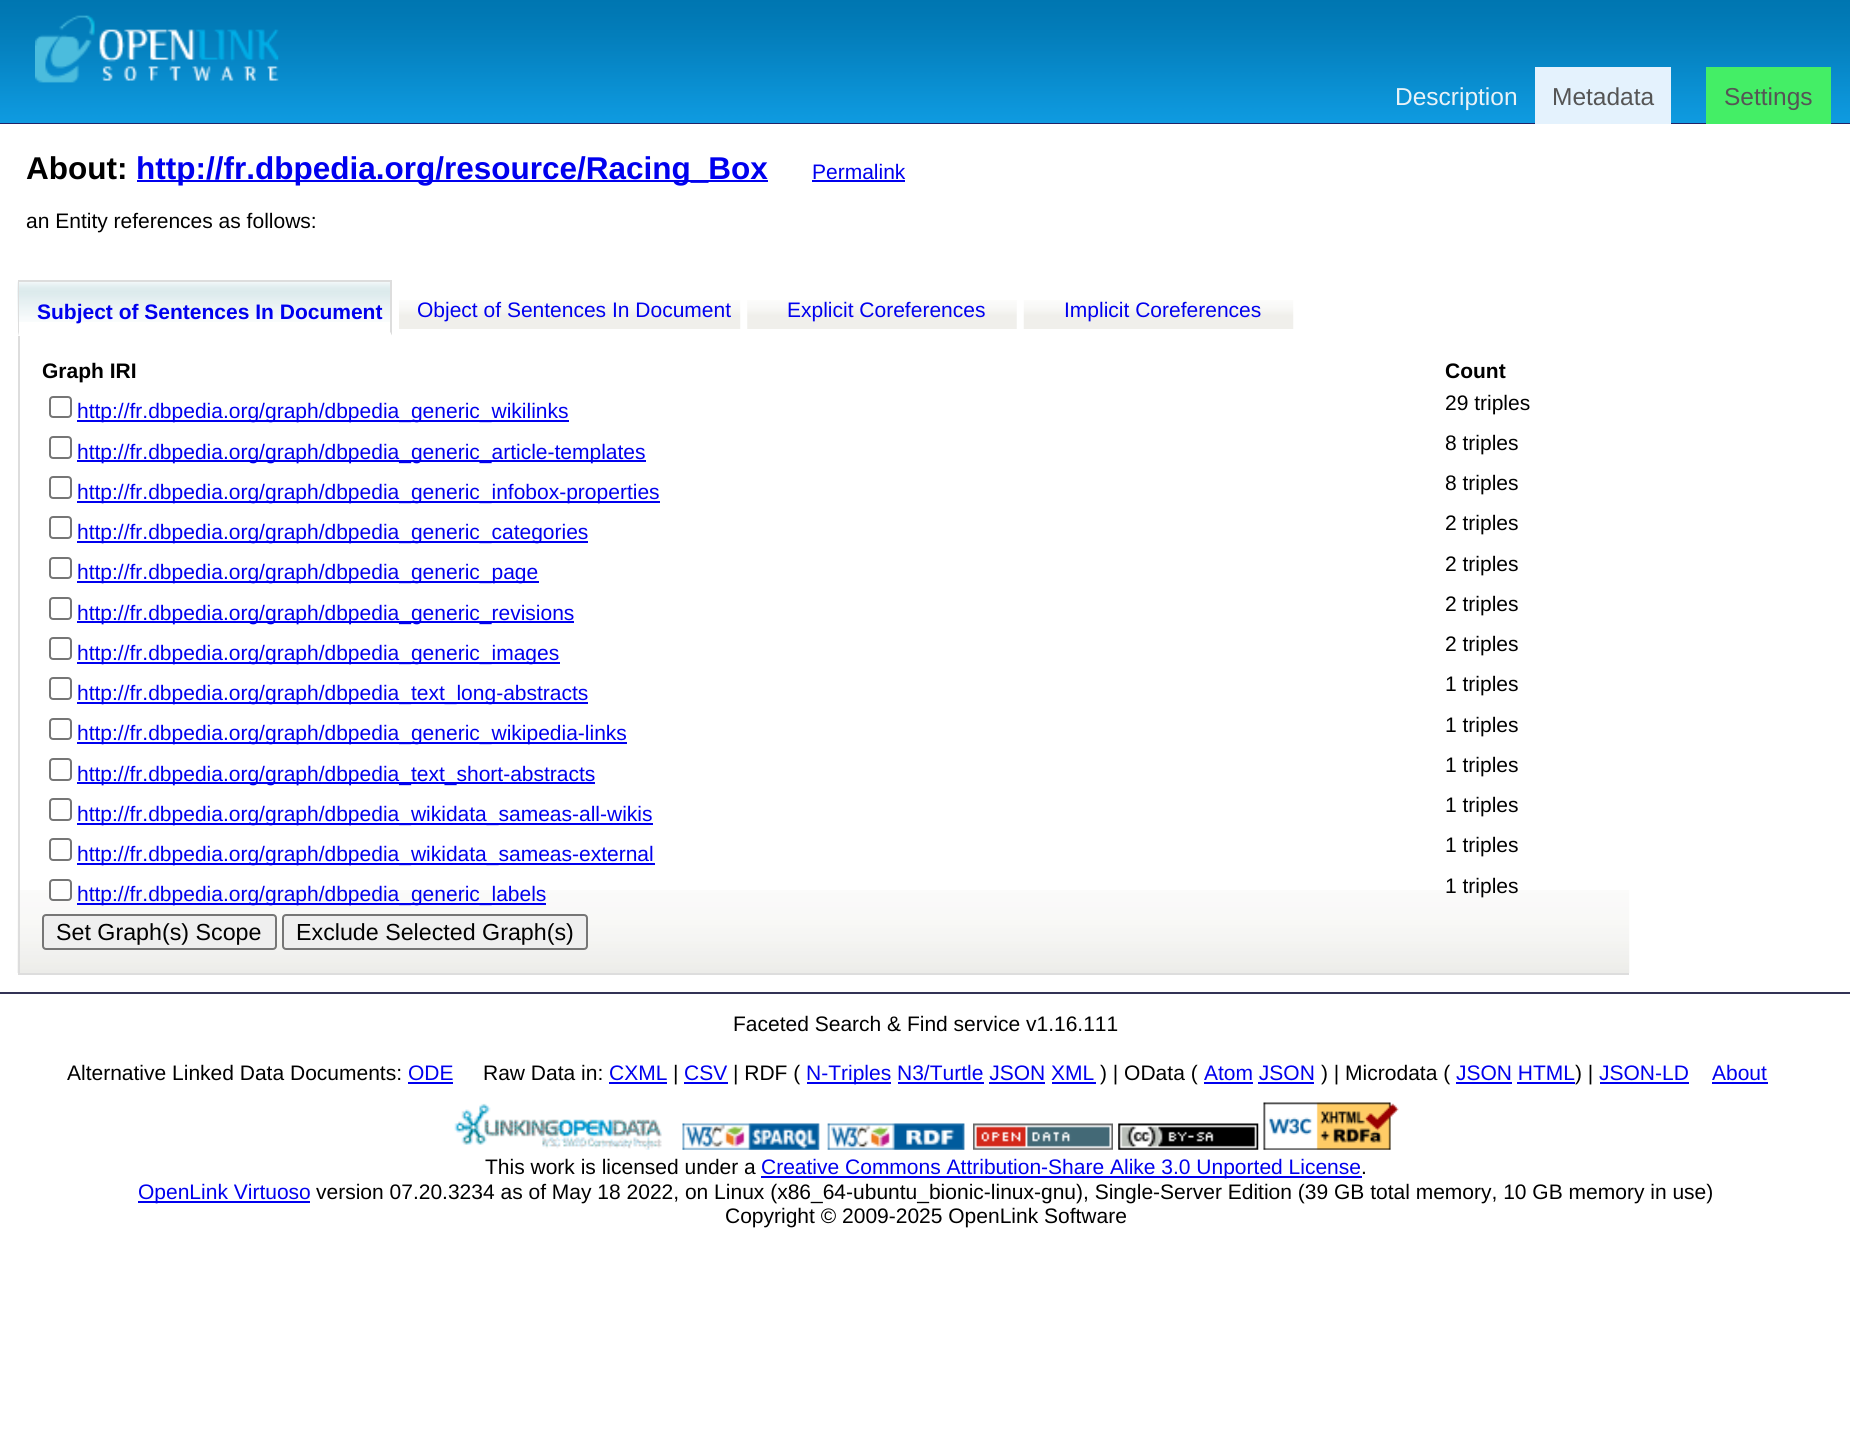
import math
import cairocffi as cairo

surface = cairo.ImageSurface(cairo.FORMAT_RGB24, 1850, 1450)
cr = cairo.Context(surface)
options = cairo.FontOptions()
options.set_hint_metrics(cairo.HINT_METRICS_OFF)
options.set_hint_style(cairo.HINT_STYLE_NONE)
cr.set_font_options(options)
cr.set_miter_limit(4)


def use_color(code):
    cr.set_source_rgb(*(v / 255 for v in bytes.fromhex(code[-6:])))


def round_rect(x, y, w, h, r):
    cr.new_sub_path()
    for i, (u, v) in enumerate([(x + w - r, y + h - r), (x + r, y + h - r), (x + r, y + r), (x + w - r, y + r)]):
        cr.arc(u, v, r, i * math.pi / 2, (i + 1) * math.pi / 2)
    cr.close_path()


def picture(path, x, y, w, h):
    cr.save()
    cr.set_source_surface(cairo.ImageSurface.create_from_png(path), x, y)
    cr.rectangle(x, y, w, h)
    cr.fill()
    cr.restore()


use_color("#ffffff")
cr.paint()
picture("img1.png", 0, 0, 1850, 123)
use_color("#222266")
cr.rectangle(0, 123, 1850, 1)
cr.fill()
picture("img2.png", 35, 15, 244, 68)
cr.select_font_face("Liberation Sans")
cr.set_font_size(24.5)
use_color("#e9f2f7")
cr.move_to(1395, 105)
cr.show_text("Description")
use_color("#e4f2fd")
cr.rectangle(1535, 67, 136, 57)
cr.fill()
use_color("#555555")
cr.move_to(1552, 105)
cr.show_text("Metadata")
use_color("#44ee66")
cr.rectangle(1706, 67, 125, 57)
cr.fill()
use_color("#555555")
cr.move_to(1724, 105)
cr.show_text("Settings")
cr.select_font_face("Liberation Sans", cairo.FONT_SLANT_NORMAL, cairo.FONT_WEIGHT_BOLD)
cr.set_font_size(31.5)
use_color("#000000")
cr.move_to(26, 179)
cr.show_text("About:")
use_color("#0000ee")
cr.rectangle(137, 180, 631, 2)
cr.fill()
cr.move_to(136, 179)
cr.show_text("http://fr.dbpedia.org/resource/Racing_Box")
cr.select_font_face("Liberation Sans")
cr.set_font_size(21)
cr.move_to(812, 179)
cr.show_text("Permalink")
cr.rectangle(812, 180, 93, 2)
cr.fill()
use_color("#000000")
cr.move_to(26, 228)
cr.show_text("an Entity references as follows:")
picture("img3.png", 17, 281, 373, 41)
use_color("#dddddd")
cr.rectangle(18, 280, 374, 2)
cr.fill()
cr.new_path()
cr.move_to(392, 280)
cr.line_to(392, 336)
cr.line_to(390, 332)
cr.line_to(390, 282)
cr.close_path()
cr.fill()
use_color("#ffffff")
cr.new_path()
cr.move_to(392, 336)
cr.line_to(18, 336)
cr.line_to(19, 332)
cr.line_to(390, 332)
cr.close_path()
cr.fill()
use_color("#dddddd")
cr.new_path()
cr.move_to(18, 336)
cr.line_to(18, 280)
cr.line_to(19, 282)
cr.line_to(19, 332)
cr.close_path()
cr.fill()
cr.select_font_face("Liberation Sans", cairo.FONT_SLANT_NORMAL, cairo.FONT_WEIGHT_BOLD)
use_color("#0000ee")
cr.move_to(37, 319)
cr.show_text("Subject of Sentences In Document")
picture("img4.png", 399, 300, 342, 29)
cr.select_font_face("Liberation Sans")
cr.move_to(417, 317)
cr.show_text("Object of Sentences In Document")
picture("img5.png", 747, 300, 270, 29)
cr.move_to(787, 317)
cr.show_text("Explicit Coreferences")
picture("img6.png", 1023, 300, 271, 29)
cr.move_to(1064, 317)
cr.show_text("Implicit Coreferences")
picture("img7.png", 17, 890, 1613, 83)
use_color("#dddddd")
cr.rectangle(18, 973, 1611, 2)
cr.fill()
cr.rectangle(18, 336, 2, 639)
cr.fill()
cr.select_font_face("Liberation Sans", cairo.FONT_SLANT_NORMAL, cairo.FONT_WEIGHT_BOLD)
use_color("#000000")
cr.move_to(42, 378)
cr.show_text("Graph IRI")
cr.move_to(1445, 378)
cr.show_text("Count")
round_rect(50, 397, 21, 20, 3)
use_color("#767676")
cr.stroke()
use_color("#0000ee")
cr.rectangle(77, 420, 492, 2)
cr.fill()
cr.select_font_face("Liberation Sans")
cr.move_to(77, 418)
cr.show_text("http://fr.dbpedia.org/graph/dbpedia_generic_wikilinks")
use_color("#000000")
cr.move_to(1445, 410)
cr.show_text("29 triples")
round_rect(50, 437, 21, 21, 3)
use_color("#767676")
cr.stroke()
use_color("#0000ee")
cr.rectangle(77, 460, 569, 2)
cr.fill()
cr.move_to(77, 459)
cr.show_text("http://fr.dbpedia.org/graph/dbpedia_generic_article-templates")
use_color("#000000")
cr.move_to(1445, 450)
cr.show_text("8 triples")
round_rect(50, 477, 21, 21, 3)
use_color("#767676")
cr.stroke()
use_color("#0000ee")
cr.rectangle(77, 501, 583, 2)
cr.fill()
cr.move_to(77, 499)
cr.show_text("http://fr.dbpedia.org/graph/dbpedia_generic_infobox-properties")
use_color("#000000")
cr.move_to(1445, 490)
cr.show_text("8 triples")
round_rect(50, 517, 21, 21, 3)
use_color("#767676")
cr.stroke()
use_color("#0000ee")
cr.rectangle(77, 541, 511, 2)
cr.fill()
cr.move_to(77, 539)
cr.show_text("http://fr.dbpedia.org/graph/dbpedia_generic_categories")
use_color("#000000")
cr.move_to(1445, 530)
cr.show_text("2 triples")
round_rect(50, 558, 21, 20, 3)
use_color("#767676")
cr.stroke()
use_color("#0000ee")
cr.rectangle(77, 581, 462, 2)
cr.fill()
cr.move_to(77, 579)
cr.show_text("http://fr.dbpedia.org/graph/dbpedia_generic_page")
use_color("#000000")
cr.move_to(1445, 571)
cr.show_text("2 triples")
round_rect(50, 598, 21, 21, 3)
use_color("#767676")
cr.stroke()
use_color("#0000ee")
cr.rectangle(77, 621, 497, 2)
cr.fill()
cr.move_to(77, 620)
cr.show_text("http://fr.dbpedia.org/graph/dbpedia_generic_revisions")
use_color("#000000")
cr.move_to(1445, 611)
cr.show_text("2 triples")
round_rect(50, 638, 21, 21, 3)
use_color("#767676")
cr.stroke()
use_color("#0000ee")
cr.rectangle(77, 662, 483, 2)
cr.fill()
cr.move_to(77, 660)
cr.show_text("http://fr.dbpedia.org/graph/dbpedia_generic_images")
use_color("#000000")
cr.move_to(1445, 651)
cr.show_text("2 triples")
round_rect(50, 678, 21, 21, 3)
use_color("#767676")
cr.stroke()
use_color("#0000ee")
cr.rectangle(77, 702, 511, 2)
cr.fill()
cr.move_to(77, 700)
cr.show_text("http://fr.dbpedia.org/graph/dbpedia_text_long-abstracts")
use_color("#000000")
cr.move_to(1445, 691)
cr.show_text("1 triples")
round_rect(50, 719, 21, 20, 3)
use_color("#767676")
cr.stroke()
use_color("#0000ee")
cr.rectangle(77, 742, 550, 2)
cr.fill()
cr.move_to(77, 740)
cr.show_text("http://fr.dbpedia.org/graph/dbpedia_generic_wikipedia-links")
use_color("#000000")
cr.move_to(1445, 732)
cr.show_text("1 triples")
round_rect(50, 759, 21, 21, 3)
use_color("#767676")
cr.stroke()
use_color("#0000ee")
cr.rectangle(77, 782, 518, 2)
cr.fill()
cr.move_to(77, 781)
cr.show_text("http://fr.dbpedia.org/graph/dbpedia_text_short-abstracts")
use_color("#000000")
cr.move_to(1445, 772)
cr.show_text("1 triples")
round_rect(50, 799, 21, 21, 3)
use_color("#767676")
cr.stroke()
use_color("#0000ee")
cr.rectangle(77, 823, 576, 2)
cr.fill()
cr.move_to(77, 821)
cr.show_text("http://fr.dbpedia.org/graph/dbpedia_wikidata_sameas-all-wikis")
use_color("#000000")
cr.move_to(1445, 812)
cr.show_text("1 triples")
round_rect(50, 839, 21, 21, 3)
use_color("#767676")
cr.stroke()
use_color("#0000ee")
cr.rectangle(77, 863, 578, 2)
cr.fill()
cr.move_to(77, 861)
cr.show_text("http://fr.dbpedia.org/graph/dbpedia_wikidata_sameas-external")
use_color("#000000")
cr.move_to(1445, 852)
cr.show_text("1 triples")
use_color("#ffffff")
round_rect(50, 880, 21, 20, 3)
cr.fill_preserve()
use_color("#767676")
cr.stroke()
use_color("#0000ee")
cr.rectangle(77, 903, 469, 2)
cr.fill()
cr.move_to(77, 901)
cr.show_text("http://fr.dbpedia.org/graph/dbpedia_generic_labels")
use_color("#000000")
cr.move_to(1445, 893)
cr.show_text("1 triples")
use_color("#efefef")
round_rect(43, 915, 233, 34, 3)
cr.fill_preserve()
use_color("#767676")
cr.stroke()
cr.set_font_size(23.25)
use_color("#000000")
cr.move_to(56, 940)
cr.show_text("Set Graph(s) Scope")
use_color("#efefef")
round_rect(283, 915, 304, 34, 3)
cr.fill_preserve()
use_color("#767676")
cr.stroke()
use_color("#000000")
cr.move_to(296, 940)
cr.show_text("Exclude Selected Graph(s)")
use_color("#333355")
cr.rectangle(0, 992, 1850, 2)
cr.fill()
cr.set_font_size(21)
use_color("#000000")
cr.move_to(733, 1031)
cr.show_text("Faceted Search & Find service v1.16.111")
cr.move_to(67, 1080)
cr.show_text("Alternative Linked Data Documents:")
use_color("#0000ee")
cr.move_to(408, 1080)
cr.show_text("ODE")
cr.rectangle(408, 1082, 45, 2)
cr.fill()
use_color("#000000")
cr.move_to(483, 1080)
cr.show_text("Raw Data in:")
use_color("#0000ee")
cr.move_to(609, 1080)
cr.show_text("CXML")
cr.rectangle(609, 1082, 58, 2)
cr.fill()
use_color("#000000")
cr.move_to(673, 1080)
cr.show_text("|")
use_color("#0000ee")
cr.move_to(684, 1080)
cr.show_text("CSV")
cr.rectangle(684, 1082, 44, 2)
cr.fill()
use_color("#000000")
cr.move_to(733, 1080)
cr.show_text("| RDF (")
use_color("#0000ee")
cr.rectangle(807, 1082, 84, 2)
cr.fill()
cr.move_to(806, 1080)
cr.show_text("N-Triples N3/Turtle JSON XML")
use_color("#000000")
cr.move_to(1100, 1080)
cr.show_text(") | OData (")
use_color("#0000ee")
cr.move_to(1204, 1080)
cr.show_text("Atom JSON")
cr.rectangle(1204, 1082, 49, 2)
cr.fill()
use_color("#000000")
cr.move_to(1321, 1080)
cr.show_text(") | Microdata (")
use_color("#0000ee")
cr.move_to(1456, 1080)
cr.show_text("JSON HTML")
cr.rectangle(1456, 1082, 56, 2)
cr.fill()
cr.rectangle(1517, 1082, 58, 2)
cr.fill()
use_color("#000000")
cr.move_to(1575, 1080)
cr.show_text(") |")
use_color("#0000ee")
cr.move_to(1599, 1080)
cr.show_text("JSON-LD")
cr.rectangle(1600, 1082, 89, 2)
cr.fill()
cr.move_to(1712, 1080)
cr.show_text("About")
cr.rectangle(1712, 1082, 56, 2)
cr.fill()
cr.rectangle(898, 1082, 86, 2)
cr.fill()
cr.rectangle(989, 1082, 56, 2)
cr.fill()
cr.rectangle(1052, 1082, 44, 2)
cr.fill()
cr.rectangle(1258, 1082, 56, 2)
cr.fill()
picture("img8.png", 454, 1103, 208, 47)
picture("img9.png", 682, 1123, 138, 27)
picture("img10.png", 827, 1123, 138, 27)
picture("img11.png", 973, 1123, 140, 27)
picture("img12.png", 1118, 1123, 141, 27)
picture("img13.png", 1263, 1102, 136, 48)
use_color("#000000")
cr.move_to(485, 1174)
cr.show_text("This work is licensed under a")
use_color("#0000ee")
cr.rectangle(761, 1176, 601, 2)
cr.fill()
cr.move_to(761, 1174)
cr.show_text("Creative Commons Attribution-Share Alike 3.0 Unported License")
use_color("#000000")
cr.move_to(1361, 1174)
cr.show_text(".")
use_color("#0000ee")
cr.rectangle(138, 1201, 172, 2)
cr.fill()
cr.move_to(138, 1199)
cr.show_text("OpenLink Virtuoso")
use_color("#000000")
cr.move_to(316, 1199)
cr.show_text("version 07.20.3234 as of May 18 2022, on Linux (x86_64-ubuntu_bionic-linux-gnu), Single-Server Edition (39 GB total memory, 10 GB memory in use)")
cr.move_to(725, 1223)
cr.show_text("Copyright © 2009-2025 OpenLink Software")
surface.write_to_png("result.png")
